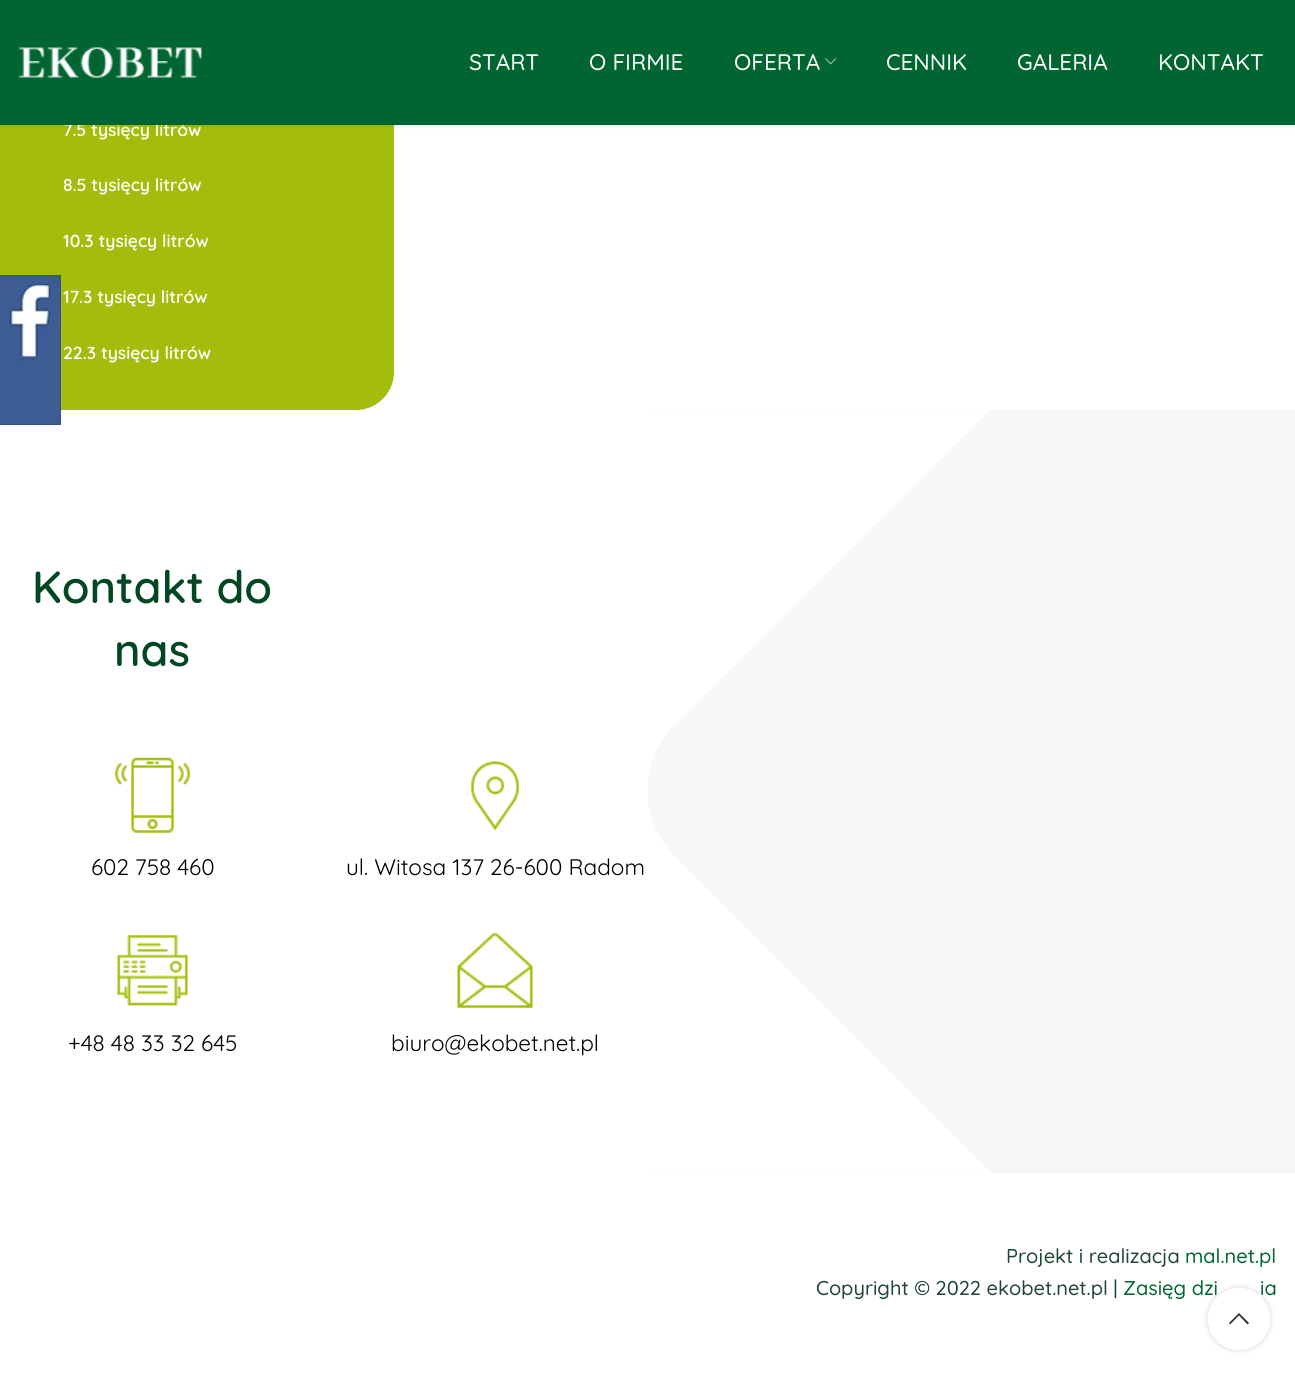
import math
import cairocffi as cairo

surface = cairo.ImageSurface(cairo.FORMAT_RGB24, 1295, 1375)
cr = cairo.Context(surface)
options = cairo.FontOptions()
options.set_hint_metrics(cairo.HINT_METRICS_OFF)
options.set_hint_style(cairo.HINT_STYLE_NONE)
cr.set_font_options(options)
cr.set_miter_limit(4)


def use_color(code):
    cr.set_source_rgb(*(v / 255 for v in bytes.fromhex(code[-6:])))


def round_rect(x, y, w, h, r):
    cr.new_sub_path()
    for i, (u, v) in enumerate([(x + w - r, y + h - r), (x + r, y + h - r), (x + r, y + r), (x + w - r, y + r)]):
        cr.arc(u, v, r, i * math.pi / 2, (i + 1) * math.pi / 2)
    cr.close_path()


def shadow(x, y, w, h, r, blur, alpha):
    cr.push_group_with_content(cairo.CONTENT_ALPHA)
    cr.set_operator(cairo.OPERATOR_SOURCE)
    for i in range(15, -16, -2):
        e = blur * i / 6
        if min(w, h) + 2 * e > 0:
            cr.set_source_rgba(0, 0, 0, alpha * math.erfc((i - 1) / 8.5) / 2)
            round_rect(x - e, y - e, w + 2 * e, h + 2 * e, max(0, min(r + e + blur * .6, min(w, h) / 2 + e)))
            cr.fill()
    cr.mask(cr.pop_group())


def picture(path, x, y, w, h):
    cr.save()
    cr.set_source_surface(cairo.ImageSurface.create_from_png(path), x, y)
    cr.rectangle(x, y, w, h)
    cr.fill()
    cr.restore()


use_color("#ffffff")
cr.paint()
use_color("#a4bd0c")
round_rect(0, -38, 394, 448, 38)
cr.fill()
picture("img1.png", 0, 275, 61, 150)
use_color("#000000")
shadow(0, 1, 1295, 125, 0, 2, 0.1)
cr.select_font_face("Quicksand SemiBold")
cr.set_font_size(17.5)
use_color("#ffffff")
cr.move_to(63, 136)
cr.show_text("7.5 tysięcy litrów")
use_color("#006530")
cr.rectangle(0, 0, 1295, 125)
cr.fill()
picture("img2.png", 18, 47, 184, 31)
cr.select_font_face("Quicksand Medium")
cr.set_font_size(22.5)
use_color("#ffffff")
cr.move_to(469, 70)
cr.show_text("START")
cr.move_to(589, 70)
cr.show_text("O FIRMIE")
cr.move_to(734, 70)
cr.show_text("OFERTA")
picture("img3.png", 825, 58, 12, 7)
cr.move_to(886, 70)
cr.show_text("CENNIK")
cr.move_to(1017, 70)
cr.show_text("GALERIA")
cr.move_to(1158, 70)
cr.show_text("KONTAKT")
cr.select_font_face("Quicksand SemiBold")
cr.set_font_size(17.5)
cr.move_to(63, 191)
cr.show_text("8.5 tysięcy litrów")
cr.move_to(63, 247)
cr.show_text("10.3 tysięcy litrów")
cr.move_to(63, 303)
cr.show_text("17.3 tysięcy litrów")
cr.move_to(63, 359)
cr.show_text("22.3 tysięcy litrów")
cr.set_font_size(45)
use_color("#004722")
cr.move_to(32, 603)
cr.show_text("Kontakt do")
cr.move_to(114, 666)
cr.show_text("nas")
picture("img4.png", 114, 757, 77, 76)
cr.select_font_face("Quicksand")
cr.set_font_size(22.5)
use_color("#000000")
cr.move_to(91, 875)
cr.show_text("602 758 460")
picture("img5.png", 117, 935, 71, 71)
cr.move_to(68, 1051)
cr.show_text("+48 48 33 32 645")
picture("img6.png", 470, 761, 50, 70)
cr.move_to(346, 875)
cr.show_text("ul. Witosa 137 26-600 Radom")
picture("img7.png", 457, 932, 76, 76)
cr.move_to(391, 1051)
cr.show_text("biuro@ekobet.net.pl")
use_color("#f7f7f7")
cr.rectangle(648, 410, 647, 763)
cr.fill()
picture("img8.png", 648, 410, 343, 763)
cr.select_font_face("Quicksand Medium")
cr.set_font_size(20)
use_color("#1e4732")
cr.move_to(1006, 1263)
cr.show_text("Projekt i realizacja")
use_color("#006530")
cr.move_to(1185, 1263)
cr.show_text("mal.net.pl")
use_color("#1e4732")
cr.move_to(816, 1295)
cr.show_text("Copyright © 2022 ekobet.net.pl |")
use_color("#006530")
cr.move_to(1123, 1295)
cr.show_text("Zasięg dzi")
cr.move_to(1260, 1295)
cr.show_text("ia")
cr.save()
cr.set_fill_rule(cairo.FILL_RULE_EVEN_ODD)
cr.new_path()
cr.move_to(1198, 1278)
cr.line_to(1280, 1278)
cr.line_to(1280, 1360)
cr.line_to(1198, 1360)
cr.close_path()
cr.move_to(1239, 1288)
cr.curve_to(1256, 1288, 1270, 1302, 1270, 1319)
cr.curve_to(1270, 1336, 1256, 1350, 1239, 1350)
cr.curve_to(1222, 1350, 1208, 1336, 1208, 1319)
cr.curve_to(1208, 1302, 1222, 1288, 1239, 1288)
cr.close_path()
cr.clip()
use_color("#000000")
shadow(1208, 1288, 62, 62, 31, 3, 0.17)
cr.restore()
cr.set_source_rgba(1, 1, 1, 0.9)
cr.arc(1239, 1319, 31, 0, 2 * math.pi)
cr.fill()
use_color("#333333")
cr.new_path()
cr.move_to(1239, 1313)
cr.line_to(1249, 1323)
cr.line_to(1247.5, 1324.5)
cr.line_to(1239, 1315.5)
cr.line_to(1230, 1324.5)
cr.line_to(1229, 1323)
cr.close_path()
cr.fill()
surface.write_to_png("result.png")
